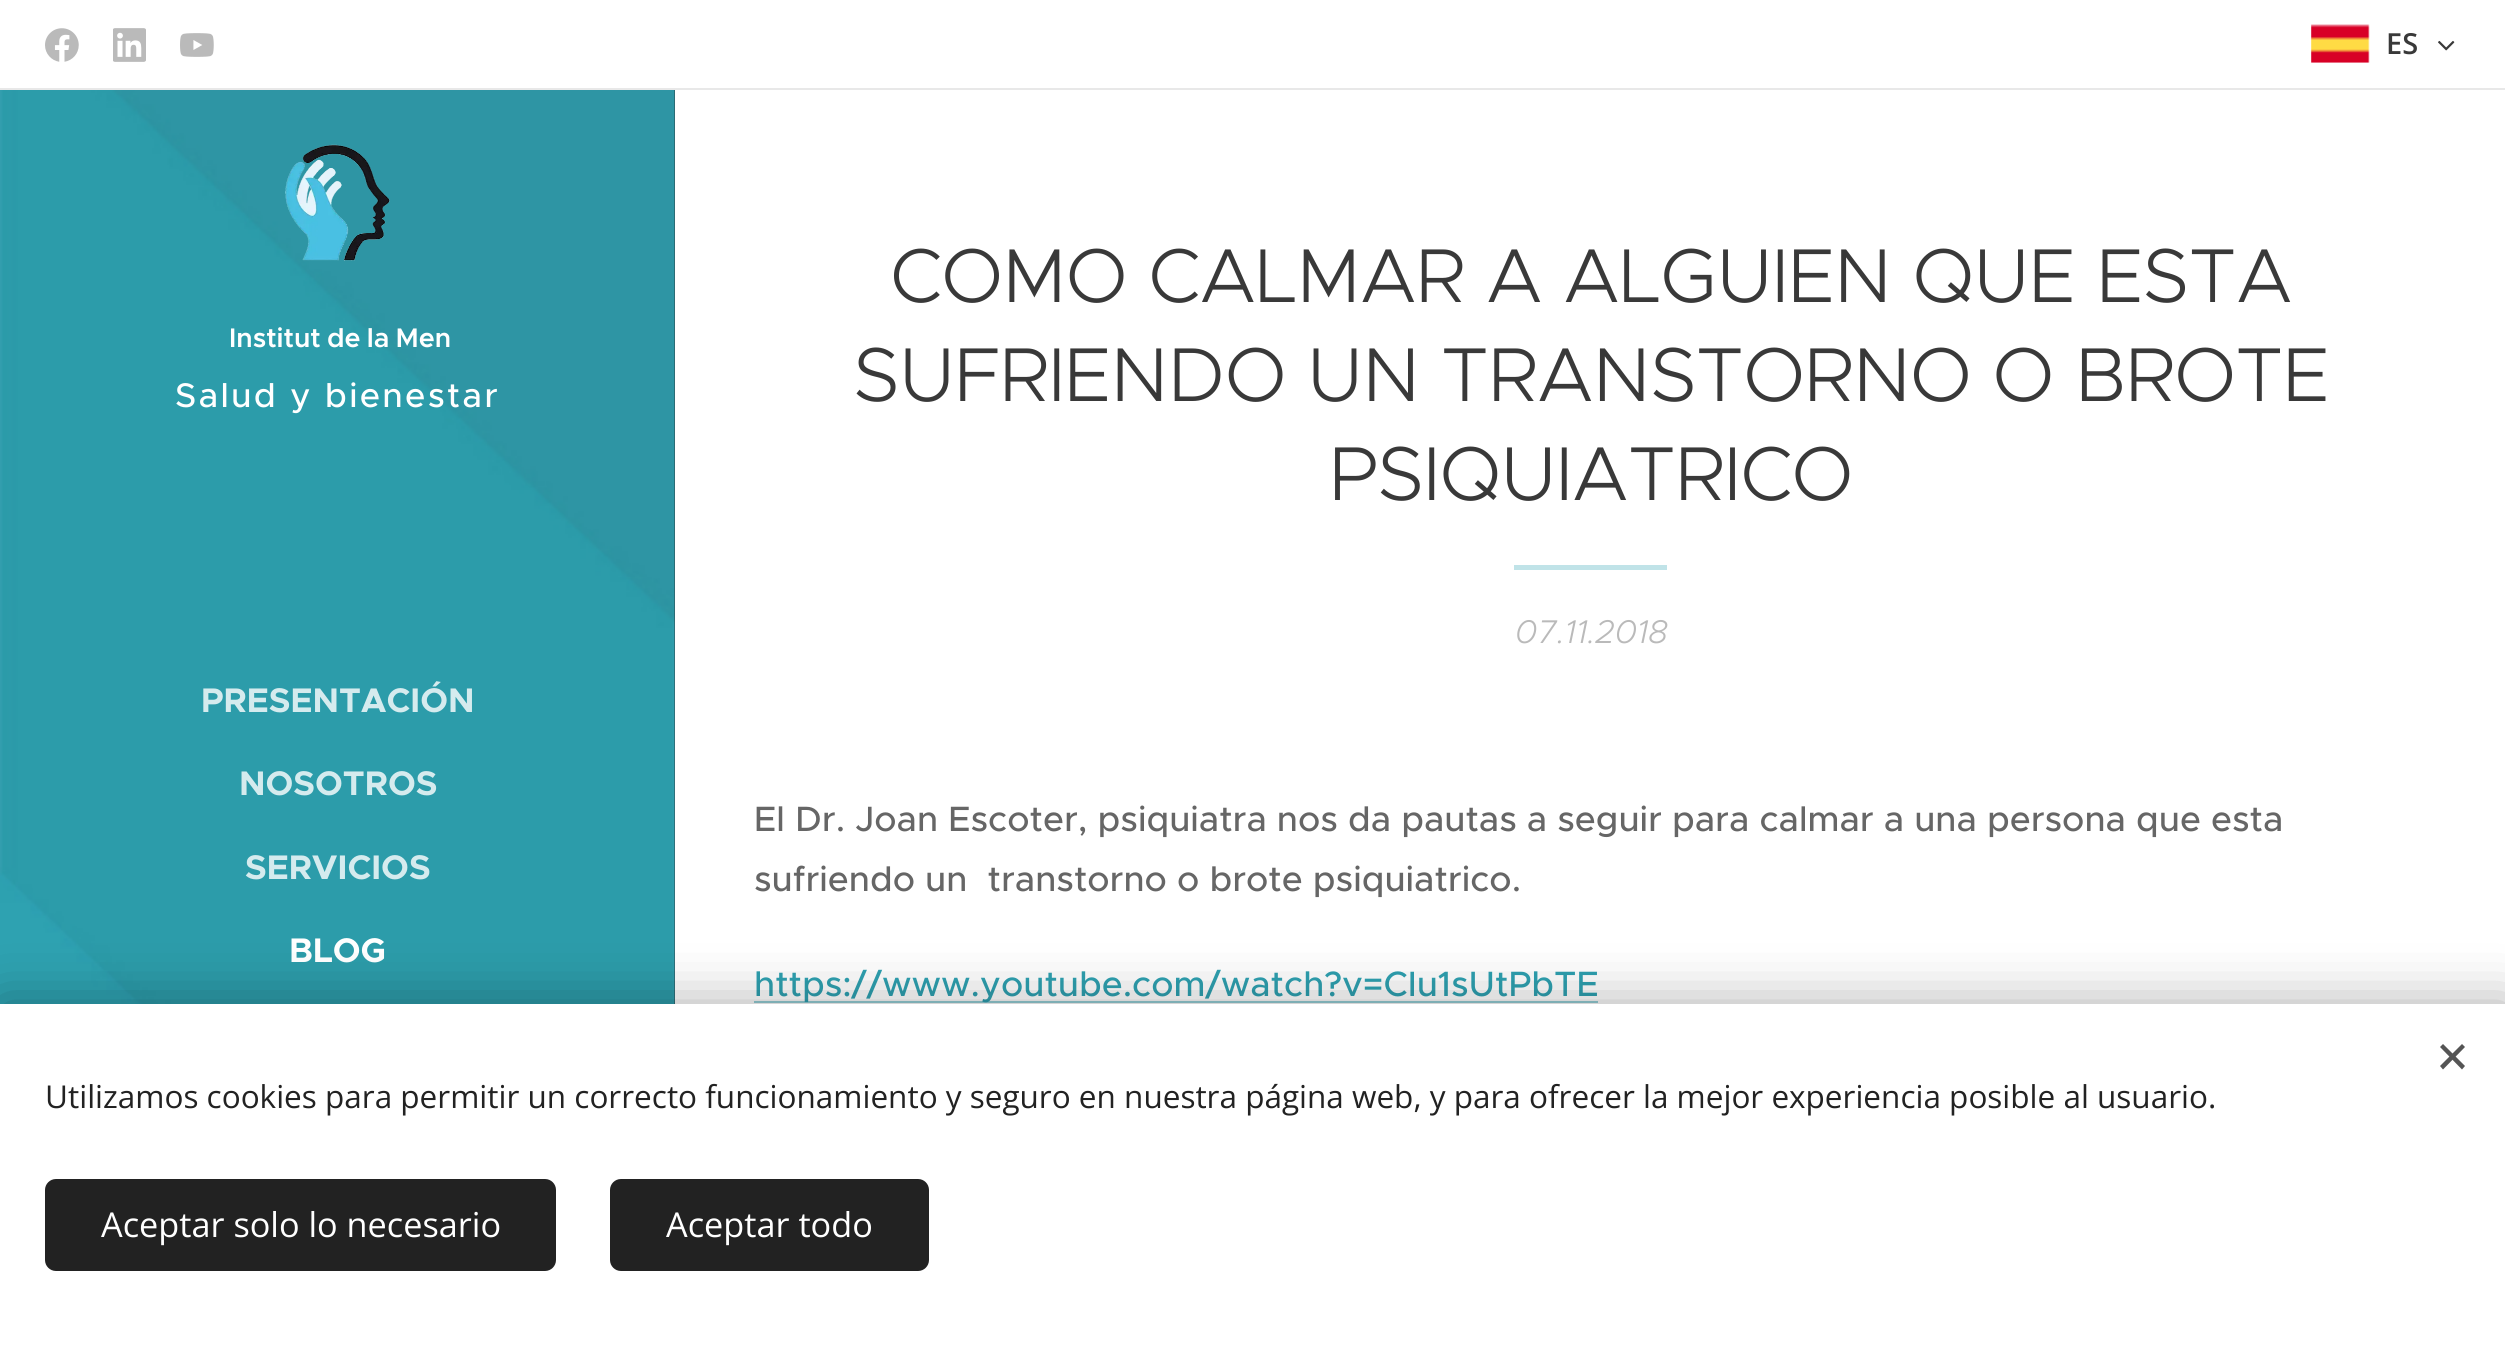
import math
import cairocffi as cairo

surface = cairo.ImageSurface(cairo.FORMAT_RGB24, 2505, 1347)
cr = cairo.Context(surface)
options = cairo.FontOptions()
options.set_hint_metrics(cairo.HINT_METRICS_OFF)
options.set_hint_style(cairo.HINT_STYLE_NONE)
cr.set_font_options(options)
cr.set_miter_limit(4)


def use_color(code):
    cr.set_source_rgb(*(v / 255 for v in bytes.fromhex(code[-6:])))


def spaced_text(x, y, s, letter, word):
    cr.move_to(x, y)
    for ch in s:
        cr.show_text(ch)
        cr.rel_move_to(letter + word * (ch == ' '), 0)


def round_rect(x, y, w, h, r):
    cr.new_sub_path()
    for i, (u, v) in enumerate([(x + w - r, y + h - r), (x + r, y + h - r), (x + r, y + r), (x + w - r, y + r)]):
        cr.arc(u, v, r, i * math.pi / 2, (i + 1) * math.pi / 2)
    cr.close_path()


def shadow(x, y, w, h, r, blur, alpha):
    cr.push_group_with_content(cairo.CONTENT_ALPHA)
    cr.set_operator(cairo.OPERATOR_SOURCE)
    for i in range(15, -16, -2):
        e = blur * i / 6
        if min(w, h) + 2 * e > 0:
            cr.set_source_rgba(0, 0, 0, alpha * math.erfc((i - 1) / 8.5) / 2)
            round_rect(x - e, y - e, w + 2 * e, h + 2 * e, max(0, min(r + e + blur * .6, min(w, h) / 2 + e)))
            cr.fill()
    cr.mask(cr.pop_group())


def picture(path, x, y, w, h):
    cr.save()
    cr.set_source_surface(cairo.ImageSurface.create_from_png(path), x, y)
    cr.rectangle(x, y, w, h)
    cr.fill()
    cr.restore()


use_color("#ffffff")
cr.paint()
picture("img1.png", 45, 28, 34, 34)
picture("img2.png", 113, 28, 33, 34)
picture("img3.png", 180, 33, 34, 24)
picture("img4.png", 2311, 24, 59, 39)
cr.select_font_face("Open Sans SemiBold")
cr.set_font_size(29)
use_color("#393939")
cr.move_to(2386, 54)
cr.show_text("ES")
picture("img5.png", 2438, 40, 17, 11)
use_color("#e8e8e8")
cr.rectangle(0, 88, 2505, 2)
cr.fill()
use_color("#272727")
cr.rectangle(674, 90, 1, 914)
cr.fill()
picture("img6.png", 0, 90, 675, 914)
picture("img7.png", 285, 144, 105, 117)
cr.select_font_face("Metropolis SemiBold")
cr.set_font_size(27)
use_color("#ffffff")
spaced_text(229, 347, "Institut de la Men", 0, -1.5)
cr.select_font_face("Metropolis Medium")
cr.set_font_size(34.25)
spaced_text(175, 407, "Salud y bienestar", 2.25, 0)
cr.select_font_face("Metropolis", cairo.FONT_SLANT_NORMAL, cairo.FONT_WEIGHT_BOLD)
use_color("#d5ebee")
cr.move_to(201, 712)
cr.show_text("PRESENTACIÓN")
cr.move_to(239, 795)
cr.show_text("NOSOTROS")
cr.move_to(245, 879)
cr.show_text("SERVICIOS")
use_color("#ffffff")
cr.move_to(289, 962)
cr.show_text("BLOG")
cr.select_font_face("Metropolis Light")
cr.set_font_size(76.5)
use_color("#393939")
spaced_text(890, 302, "COMO CALMAR A ALGUIEN QUE ESTA", -0.75, 0)
spaced_text(853, 401, "SUFRIENDO UN TRANSTORNO O BROTE", -0.75, 0)
spaced_text(1329, 500, "PSIQUIATRICO", -0.75, 0)
use_color("#c0e3e8")
cr.rectangle(1514, 565, 153, 5)
cr.fill()
cr.select_font_face("Metropolis Light", cairo.FONT_SLANT_ITALIC)
cr.set_font_size(33)
use_color("#bababa")
cr.move_to(1515, 643)
cr.show_text("07.11.2018")
cr.select_font_face("Metropolis Medium")
cr.set_font_size(35.3)
use_color("#666666")
cr.move_to(754, 831)
cr.show_text("El Dr. Joan Escoter, psiquiatra nos da pautas a seguir para calmar a una persona que esta")
cr.move_to(754, 891)
cr.show_text("sufriendo un  transtorno o brote psiquiatrico.")
use_color("#97d0d8")
cr.rectangle(754, 1001, 844, 2)
cr.fill()
use_color("#2ea1b1")
cr.move_to(754, 996)
cr.show_text("https://www.youtube.com/watch?v=CIu1sUtPbTE")
use_color("#000000")
shadow(0, 1004, 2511, 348, 0, 28, 0.33)
use_color("#ffffff")
cr.rectangle(0, 1004, 2505, 343)
cr.fill()
use_color("#555555")
cr.new_path()
cr.move_to(2440, 1066)
cr.line_to(2462, 1044)
cr.line_to(2465, 1047)
cr.line_to(2443, 1069.5)
cr.close_path()
cr.fill()
cr.new_path()
cr.move_to(2443, 1044)
cr.line_to(2465, 1066)
cr.line_to(2462, 1069.5)
cr.line_to(2440, 1047)
cr.close_path()
cr.fill()
cr.select_font_face("Open Sans")
cr.set_font_size(31.5)
use_color("#222222")
cr.move_to(45, 1108)
cr.show_text("Utilizamos cookies para permitir un correcto funcionamiento y seguro en nuestra página web, y para ofrecer la mejor experiencia posible al usuario.")
round_rect(45, 1179, 511, 92, 11)
cr.fill()
cr.set_font_size(34.25)
use_color("#ffffff")
cr.move_to(101, 1237)
cr.show_text("Aceptar solo lo necesario")
use_color("#222222")
round_rect(610, 1179, 319, 92, 11)
cr.fill()
use_color("#ffffff")
cr.move_to(666, 1237)
cr.show_text("Aceptar todo")
surface.write_to_png("result.png")
